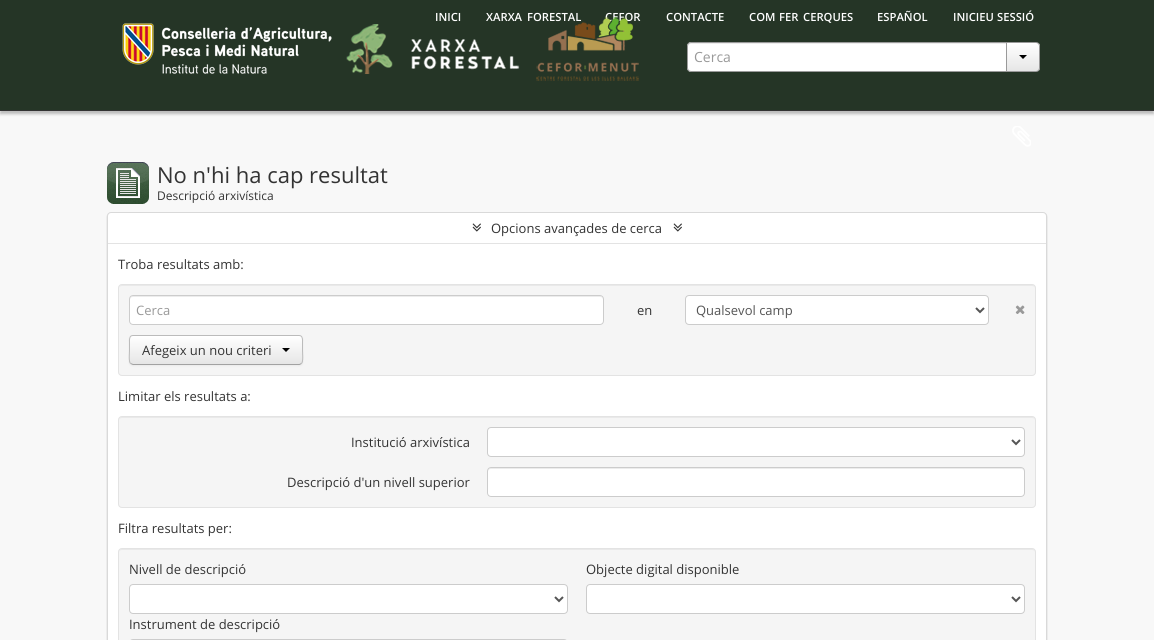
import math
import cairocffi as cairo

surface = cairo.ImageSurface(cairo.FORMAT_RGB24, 1154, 640)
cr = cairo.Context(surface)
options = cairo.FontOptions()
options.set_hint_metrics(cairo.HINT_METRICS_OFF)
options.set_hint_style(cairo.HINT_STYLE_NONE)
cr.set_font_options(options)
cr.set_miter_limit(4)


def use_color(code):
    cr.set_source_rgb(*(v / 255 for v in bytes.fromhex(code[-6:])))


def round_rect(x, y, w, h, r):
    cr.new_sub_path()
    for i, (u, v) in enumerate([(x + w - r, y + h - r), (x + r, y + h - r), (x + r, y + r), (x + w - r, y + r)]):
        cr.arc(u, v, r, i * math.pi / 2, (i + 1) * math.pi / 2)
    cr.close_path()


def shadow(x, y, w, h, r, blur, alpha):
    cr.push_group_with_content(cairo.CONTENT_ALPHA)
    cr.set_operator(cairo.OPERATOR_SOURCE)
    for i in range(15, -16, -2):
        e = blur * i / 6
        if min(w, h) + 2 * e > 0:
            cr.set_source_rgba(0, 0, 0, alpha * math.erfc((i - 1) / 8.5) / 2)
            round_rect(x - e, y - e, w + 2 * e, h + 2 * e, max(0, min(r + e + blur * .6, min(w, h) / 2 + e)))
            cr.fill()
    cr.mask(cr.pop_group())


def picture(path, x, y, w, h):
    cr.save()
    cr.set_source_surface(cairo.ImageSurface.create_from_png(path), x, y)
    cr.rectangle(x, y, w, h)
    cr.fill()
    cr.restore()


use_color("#f8f8f8")
cr.paint()
use_color("#000000")
shadow(0, 3, 1154, 111, 0, 1.5, 0.25)
use_color("#253526")
cr.rectangle(0, 0, 1154, 110)
cr.fill()
use_color("#333333")
cr.rectangle(0, 110, 1154, 1)
cr.fill()
cr.select_font_face("Open Sans SemiBold")
cr.set_font_size(11.25)
use_color("#ffffff")
cr.move_to(435, 21)
cr.show_text("INICI")
cr.move_to(486, 21)
cr.show_text("XARXA")
cr.move_to(527, 21)
cr.show_text("FORESTAL")
cr.move_to(605, 21)
cr.show_text("CEFOR")
cr.move_to(666, 21)
cr.show_text("CONTACTE")
cr.move_to(749, 21)
cr.show_text("COM")
cr.move_to(779, 21)
cr.show_text("FER")
cr.move_to(803, 21)
cr.show_text("CERQUES")
cr.move_to(877, 21)
cr.show_text("ESPAÑOL")
cr.move_to(953, 21)
cr.show_text("INICIEU")
cr.move_to(997, 21)
cr.show_text("SESSIÓ")
picture("img1.png", 122, 23, 210, 51)
picture("img2.png", 346, 24, 174, 50)
picture("img3.png", 536, 17, 103, 64)
cr.new_path()
cr.move_to(691, 42)
cr.line_to(1007, 42)
cr.line_to(1007, 72)
cr.line_to(691, 72)
cr.curve_to(689, 72, 687, 70, 687, 68)
cr.line_to(687, 46)
cr.curve_to(687, 44, 689, 42, 691, 42)
cr.close_path()
cr.fill()
use_color("#ececec")
cr.new_path()
cr.move_to(691, 44)
cr.line_to(1006, 44)
cr.line_to(1006, 43)
cr.line_to(691, 43)
cr.curve_to(689, 43, 688, 45, 688, 47)
cr.curve_to(688, 45, 689, 44, 691, 44)
cr.close_path()
cr.fill()
cr.new_path()
cr.move_to(691, 42.5)
cr.line_to(1006.5, 42.5)
cr.line_to(1006.5, 71.5)
cr.line_to(691, 71.5)
cr.curve_to(689, 71.5, 687.5, 70, 687.5, 68)
cr.line_to(687.5, 46)
cr.curve_to(687.5, 44, 689, 42.5, 691, 42.5)
cr.close_path()
use_color("#9a9a9a")
cr.set_line_width(1)
cr.stroke()
cr.select_font_face("Open Sans")
cr.set_font_size(14)
use_color("#999999")
cr.move_to(694, 62)
cr.show_text("Cerca")
cr.save()
cr.new_path()
cr.move_to(1006, 42)
cr.line_to(1036, 42)
cr.curve_to(1038, 42, 1040, 44, 1040, 46)
cr.line_to(1040, 68)
cr.curve_to(1040, 70, 1038, 72, 1036, 72)
cr.line_to(1006, 72)
cr.close_path()
cr.clip()
gradient = cairo.LinearGradient(1023, 43, 1023, 71)
gradient.add_color_stop_rgba(0, 1, 1, 1, 1)
gradient.add_color_stop_rgba(1, 0.902, 0.902, 0.902, 1)
cr.set_source(gradient)
cr.rectangle(1007, 43, 33, 28)
cr.fill()
cr.restore()
cr.new_path()
cr.move_to(1006.5, 42.5)
cr.line_to(1036, 42.5)
cr.curve_to(1038, 42.5, 1039.5, 44, 1039.5, 46)
cr.line_to(1039.5, 68)
cr.curve_to(1039.5, 70, 1038, 71.5, 1036, 71.5)
cr.line_to(1006.5, 71.5)
cr.close_path()
use_color("#9a9a9a")
cr.stroke()
use_color("#000000")
cr.new_path()
cr.move_to(1019, 55)
cr.line_to(1027, 55)
cr.line_to(1023, 59)
cr.close_path()
cr.fill()
picture("img4.png", 1012, 126, 19, 21)
picture("img5.png", 107, 162, 42, 42)
cr.set_font_size(22)
use_color("#333333")
cr.move_to(157, 183)
cr.show_text("No n'hi ha cap resultat")
cr.set_font_size(12)
cr.move_to(157, 200)
cr.show_text("Descripció arxivística")
use_color("#000000")
shadow(107, 213, 940, 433, 4, 0.5, 0.2)
use_color("#ffffff")
round_rect(107.5, 212.5, 939, 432, 3.5)
cr.fill_preserve()
use_color("#d9d9d9")
cr.stroke()
picture("img6.png", 472, 223, 9, 9)
cr.set_font_size(13)
use_color("#333333")
cr.move_to(491, 233)
cr.show_text("Opcions avançades de cerca")
picture("img6.png", 673, 223, 9, 9)
use_color("#e3e3e3")
cr.rectangle(108, 243, 938, 1)
cr.fill()
use_color("#333333")
cr.move_to(118, 269)
cr.show_text("Troba resultats amb:")
use_color("#f5f5f5")
round_rect(118, 284, 918, 92, 4)
cr.fill()
use_color("#e9e9e9")
cr.new_path()
cr.move_to(122, 286)
cr.line_to(1032, 286)
cr.curve_to(1034, 286, 1035, 287, 1035, 289)
cr.curve_to(1035, 287, 1034, 285, 1032, 285)
cr.line_to(122, 285)
cr.curve_to(120, 285, 119, 287, 119, 289)
cr.curve_to(119, 287, 120, 286, 122, 286)
cr.close_path()
cr.fill()
round_rect(118.5, 284.5, 917, 91, 3.5)
use_color("#e3e3e3")
cr.stroke()
use_color("#ffffff")
round_rect(129, 295, 475, 30, 4)
cr.fill()
use_color("#ececec")
cr.new_path()
cr.move_to(133, 297)
cr.line_to(600, 297)
cr.curve_to(602, 297, 603, 298, 603, 300)
cr.line_to(603, 298)
cr.line_to(601, 296)
cr.line_to(132, 296)
cr.curve_to(130, 297, 130, 298, 130, 300)
cr.curve_to(130, 298, 131, 297, 133, 297)
cr.close_path()
cr.fill()
round_rect(129.5, 295.5, 474, 29, 3.5)
use_color("#cccccc")
cr.stroke()
use_color("#999999")
cr.move_to(136, 315)
cr.show_text("Cerca")
use_color("#333333")
cr.move_to(637, 315)
cr.show_text("en")
use_color("#ffffff")
round_rect(685.5, 295.5, 303, 29, 3.5)
cr.fill_preserve()
use_color("#cccccc")
cr.stroke()
cr.new_path()
cr.move_to(976, 308)
cr.line_to(980, 312)
cr.line_to(984, 308)
use_color("#555555")
cr.set_line_width(2)
cr.stroke()
cr.move_to(696, 315)
cr.show_text("Qualsevol camp")
picture("img7.png", 1015, 305, 10, 9)
use_color("#000000")
shadow(129, 336, 174, 30, 4, 1, 0.05)
use_color("#f5f5f5")
round_rect(129, 335, 174, 30, 4)
cr.fill()
cr.save()
round_rect(129, 335, 174, 30, 4)
cr.clip()
gradient = cairo.LinearGradient(216, 336, 216, 364)
gradient.add_color_stop_rgba(0, 1, 1, 1, 1)
gradient.add_color_stop_rgba(1, 0.902, 0.902, 0.902, 1)
cr.set_source(gradient)
cr.rectangle(129, 336, 174, 28)
cr.fill()
cr.restore()
cr.new_path()
cr.move_to(301.5, 363.5)
cr.line_to(299.5, 364.5)
cr.line_to(160.5, 364.5)
cr.line_to(133, 364.5)
cr.line_to(130.5, 363.5)
use_color("#a2a2a2")
cr.set_line_width(1)
cr.stroke()
cr.new_path()
cr.move_to(130.5, 363.5)
cr.curve_to(128.5, 361.5, 129.5, 353, 129.5, 350)
cr.line_to(129.5, 342.5)
cr.curve_to(129.5, 340, 129, 335.5, 133, 335.5)
cr.line_to(299, 335.5)
cr.curve_to(303, 335.5, 302.5, 340, 302.5, 342.5)
cr.line_to(302.5, 350)
cr.curve_to(302.5, 353, 303.5, 361.5, 301.5, 363.5)
use_color("#bbbbbb")
cr.stroke()
use_color("#333333")
cr.move_to(142, 355)
cr.show_text("Afegeix un nou criteri")
use_color("#000000")
cr.new_path()
cr.move_to(282, 348)
cr.line_to(290, 348)
cr.line_to(286, 352)
cr.close_path()
cr.fill()
use_color("#333333")
cr.move_to(118, 401)
cr.show_text("Limitar els resultats a:")
use_color("#f5f5f5")
round_rect(118, 416, 918, 92, 4)
cr.fill()
use_color("#e9e9e9")
cr.new_path()
cr.move_to(122, 418)
cr.line_to(1032, 418)
cr.curve_to(1034, 418, 1035, 419, 1035, 421)
cr.curve_to(1035, 419, 1034, 417, 1032, 417)
cr.line_to(122, 417)
cr.curve_to(120, 417, 119, 419, 119, 421)
cr.curve_to(119, 419, 120, 418, 122, 418)
cr.close_path()
cr.fill()
round_rect(118.5, 416.5, 917, 91, 3.5)
use_color("#e3e3e3")
cr.stroke()
use_color("#333333")
cr.move_to(351, 447)
cr.show_text("Institució arxivística")
use_color("#ffffff")
round_rect(487.5, 427.5, 537, 29, 3.5)
cr.fill_preserve()
use_color("#cccccc")
cr.stroke()
cr.new_path()
cr.move_to(1012, 440)
cr.line_to(1016, 444)
cr.line_to(1020, 440)
use_color("#555555")
cr.set_line_width(2)
cr.stroke()
use_color("#333333")
cr.move_to(287, 487)
cr.show_text("Descripció d'un nivell superior")
use_color("#ffffff")
round_rect(487, 467, 538, 30, 4)
cr.fill()
use_color("#ececec")
cr.new_path()
cr.move_to(491, 469)
cr.line_to(1021, 469)
cr.curve_to(1023, 469, 1024, 470, 1024, 472)
cr.line_to(1024, 471)
cr.curve_to(1024, 469, 1023, 468, 1021, 468)
cr.line_to(491, 468)
cr.curve_to(489, 468, 488, 469, 488, 471)
cr.line_to(488, 472)
cr.curve_to(488, 470, 489, 469, 491, 469)
cr.close_path()
cr.fill()
round_rect(487.5, 467.5, 537, 29, 3.5)
use_color("#cccccc")
cr.set_line_width(1)
cr.stroke()
use_color("#333333")
cr.move_to(118, 533)
cr.show_text("Filtra resultats per:")
use_color("#f5f5f5")
round_rect(118, 548, 918, 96, 4)
cr.fill()
use_color("#e9e9e9")
cr.new_path()
cr.move_to(122, 550)
cr.line_to(1032, 550)
cr.curve_to(1034, 550, 1035, 551, 1035, 553)
cr.curve_to(1035, 551, 1034, 549, 1032, 549)
cr.line_to(122, 549)
cr.curve_to(120, 549, 119, 551, 119, 553)
cr.curve_to(119, 551, 120, 550, 122, 550)
cr.close_path()
cr.fill()
round_rect(118.5, 548.5, 917, 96, 3.5)
use_color("#e3e3e3")
cr.stroke()
use_color("#333333")
cr.move_to(129, 574)
cr.show_text("Nivell de descripció")
use_color("#ffffff")
round_rect(129.5, 584.5, 438, 29, 3.5)
cr.fill_preserve()
use_color("#cccccc")
cr.stroke()
cr.new_path()
cr.move_to(555, 597)
cr.line_to(559, 601)
cr.line_to(563, 597)
use_color("#555555")
cr.set_line_width(2)
cr.stroke()
use_color("#333333")
cr.move_to(586, 574)
cr.show_text("Objecte digital disponible")
use_color("#ffffff")
round_rect(586.5, 584.5, 438, 29, 3.5)
cr.fill_preserve()
use_color("#cccccc")
cr.set_line_width(1)
cr.stroke()
cr.new_path()
cr.move_to(1012, 597)
cr.line_to(1016, 601)
cr.line_to(1020, 597)
use_color("#555555")
cr.set_line_width(2)
cr.stroke()
use_color("#333333")
cr.move_to(129, 629)
cr.show_text("Instrument de descripció")
round_rect(129.5, 639.5, 438, 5, 3.5)
use_color("#cccccc")
cr.set_line_width(1)
cr.stroke()
surface.write_to_png("result.png")
